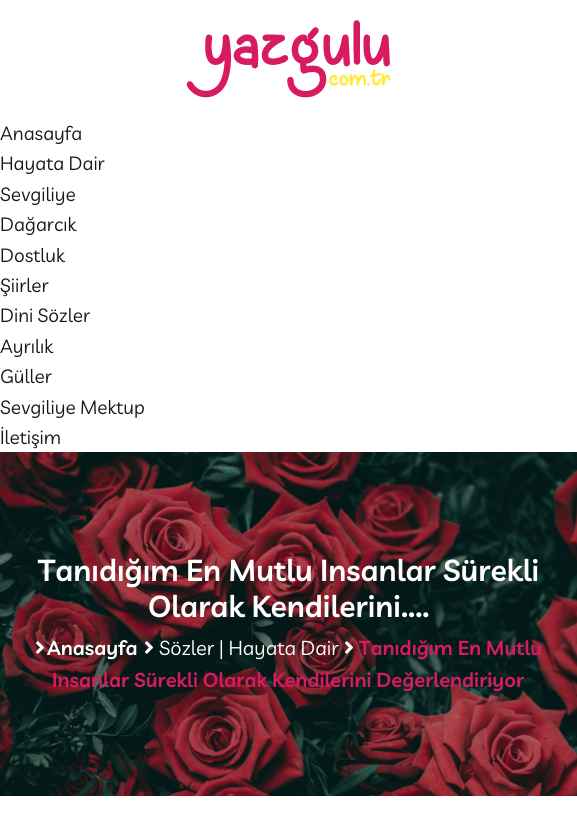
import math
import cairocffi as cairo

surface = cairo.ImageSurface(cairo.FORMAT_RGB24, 577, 828)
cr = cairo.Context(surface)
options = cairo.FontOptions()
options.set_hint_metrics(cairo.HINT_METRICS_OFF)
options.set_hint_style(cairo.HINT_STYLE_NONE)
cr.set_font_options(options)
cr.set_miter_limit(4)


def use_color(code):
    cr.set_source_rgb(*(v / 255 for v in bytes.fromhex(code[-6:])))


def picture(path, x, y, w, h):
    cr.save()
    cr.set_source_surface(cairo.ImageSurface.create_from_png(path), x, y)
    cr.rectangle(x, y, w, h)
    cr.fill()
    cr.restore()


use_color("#ffffff")
cr.paint()
picture("img1.png", 186, 20, 205, 78)
cr.select_font_face("Livvic")
cr.set_font_size(19)
use_color("#17161a")
cr.move_to(0, 140)
cr.show_text("Anasayfa")
cr.move_to(0, 170)
cr.show_text("Hayata Dair")
cr.move_to(0, 201)
cr.show_text("Sevgiliye")
cr.move_to(0, 231)
cr.show_text("Dağarcık")
cr.move_to(0, 262)
cr.show_text("Dostluk")
cr.move_to(0, 292)
cr.show_text("Şiirler")
cr.move_to(0, 322)
cr.show_text("Dini Sözler")
cr.move_to(0, 353)
cr.show_text("Ayrılık")
cr.move_to(0, 383)
cr.show_text("Güller")
cr.move_to(0, 414)
cr.show_text("Sevgiliye Mektup")
cr.move_to(0, 444)
cr.show_text("İletişim")
picture("img2.png", 0, 452, 577, 344)
cr.select_font_face("Livvic SemiBold")
cr.set_font_size(30)
use_color("#ffffff")
cr.move_to(38, 581)
cr.show_text("Tanıdığım En Mutlu Insanlar Sürekli")
cr.move_to(148, 617)
cr.show_text("Olarak Kendilerini....")
picture("img3.png", 36, 641, 8, 13)
cr.set_font_size(20)
cr.move_to(47, 655)
cr.show_text("Anasayfa")
picture("img4.png", 145, 641, 8, 13)
cr.select_font_face("Livvic")
cr.move_to(159, 655)
cr.show_text("Sözler | Hayata Dair")
picture("img5.png", 345, 641, 8, 13)
cr.select_font_face("Livvic SemiBold")
use_color("#d81b60")
cr.move_to(359, 655)
cr.show_text("Tanıdığım En Mutlu")
cr.move_to(52, 687)
cr.show_text("Insanlar Sürekli Olarak Kendilerini Değerlendiriyor")
surface.write_to_png("result.png")
